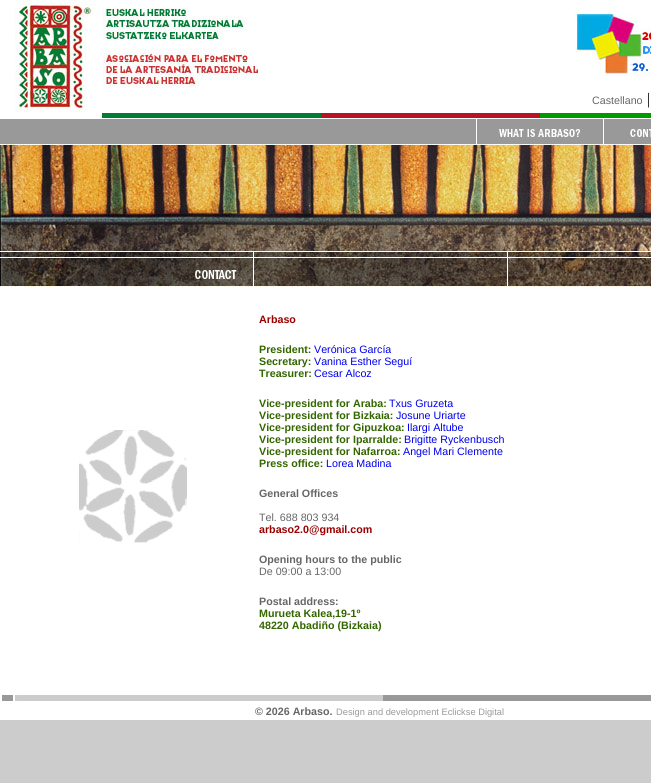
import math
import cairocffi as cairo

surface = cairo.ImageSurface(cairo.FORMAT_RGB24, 651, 783)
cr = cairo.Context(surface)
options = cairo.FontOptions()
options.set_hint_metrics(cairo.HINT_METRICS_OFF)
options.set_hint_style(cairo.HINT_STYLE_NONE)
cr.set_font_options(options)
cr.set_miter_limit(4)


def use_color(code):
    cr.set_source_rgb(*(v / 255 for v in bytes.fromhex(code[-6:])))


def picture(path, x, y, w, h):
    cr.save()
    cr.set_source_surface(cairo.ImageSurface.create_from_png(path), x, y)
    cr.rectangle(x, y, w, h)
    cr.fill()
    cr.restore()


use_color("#cccccc")
cr.paint()
use_color("#ffffff")
cr.rectangle(0, 0, 651, 720)
cr.fill()
picture("img1.png", 15, 0, 243, 112)
picture("img2.png", 575, 12, 76, 64)
cr.select_font_face("Liberation Sans")
cr.set_font_size(10.7)
use_color("#666666")
cr.move_to(592, 104)
cr.show_text("Castellano")
cr.select_font_face("Liberation Serif")
cr.set_font_size(16)
use_color("#000000")
cr.move_to(647, 104)
cr.show_text("|")
picture("img3.png", 102, 113, 549, 5)
picture("img4.png", 0, 119, 651, 25)
picture("img5.png", 0, 144, 651, 143)
picture("img6.png", 79, 430, 108, 113)
cr.select_font_face("Liberation Sans", cairo.FONT_SLANT_NORMAL, cairo.FONT_WEIGHT_BOLD)
cr.set_font_size(10.7)
use_color("#990000")
cr.move_to(259, 323)
cr.show_text("Arbaso")
use_color("#336600")
cr.move_to(259, 353)
cr.show_text("President:")
cr.select_font_face("Liberation Sans")
use_color("#0000ee")
cr.move_to(314, 353)
cr.show_text("Verónica García")
cr.select_font_face("Liberation Sans", cairo.FONT_SLANT_NORMAL, cairo.FONT_WEIGHT_BOLD)
use_color("#336600")
cr.move_to(259, 365)
cr.show_text("Secretary:")
cr.select_font_face("Liberation Sans")
use_color("#0000ee")
cr.move_to(314, 365)
cr.show_text("Vanina Esther Seguí")
cr.select_font_face("Liberation Sans", cairo.FONT_SLANT_NORMAL, cairo.FONT_WEIGHT_BOLD)
use_color("#336600")
cr.move_to(259, 377)
cr.show_text("Treasurer:")
cr.select_font_face("Liberation Sans")
use_color("#0000ee")
cr.move_to(314, 377)
cr.show_text("Cesar Alcoz")
cr.select_font_face("Liberation Sans", cairo.FONT_SLANT_NORMAL, cairo.FONT_WEIGHT_BOLD)
use_color("#336600")
cr.move_to(259, 407)
cr.show_text("Vice-president for Araba:")
cr.select_font_face("Liberation Sans")
use_color("#0000ee")
cr.move_to(389, 407)
cr.show_text("Txus Gruzeta")
cr.select_font_face("Liberation Sans", cairo.FONT_SLANT_NORMAL, cairo.FONT_WEIGHT_BOLD)
use_color("#336600")
cr.move_to(259, 419)
cr.show_text("Vice-president for Bizkaia:")
cr.select_font_face("Liberation Sans")
use_color("#0000ee")
cr.move_to(396, 419)
cr.show_text("Josune Uriarte")
cr.select_font_face("Liberation Sans", cairo.FONT_SLANT_NORMAL, cairo.FONT_WEIGHT_BOLD)
use_color("#336600")
cr.move_to(259, 431)
cr.show_text("Vice-president for Gipuzkoa:")
cr.select_font_face("Liberation Sans")
use_color("#0000ee")
cr.move_to(407, 431)
cr.show_text("Ilargi Altube")
cr.select_font_face("Liberation Sans", cairo.FONT_SLANT_NORMAL, cairo.FONT_WEIGHT_BOLD)
use_color("#336600")
cr.move_to(259, 443)
cr.show_text("Vice-president for Iparralde:")
cr.select_font_face("Liberation Sans")
use_color("#0000ee")
cr.move_to(404, 443)
cr.show_text("Brigitte Ryckenbusch")
cr.select_font_face("Liberation Sans", cairo.FONT_SLANT_NORMAL, cairo.FONT_WEIGHT_BOLD)
use_color("#336600")
cr.move_to(259, 455)
cr.show_text("Vice-president for Nafarroa:")
cr.select_font_face("Liberation Sans")
use_color("#0000ee")
cr.move_to(403, 455)
cr.show_text("Angel Mari Clemente")
cr.select_font_face("Liberation Sans", cairo.FONT_SLANT_NORMAL, cairo.FONT_WEIGHT_BOLD)
use_color("#336600")
cr.move_to(259, 467)
cr.show_text("Press office:")
cr.select_font_face("Liberation Sans")
use_color("#0000ee")
cr.move_to(326, 467)
cr.show_text("Lorea Madina")
cr.select_font_face("Liberation Sans", cairo.FONT_SLANT_NORMAL, cairo.FONT_WEIGHT_BOLD)
use_color("#666666")
cr.move_to(259, 497)
cr.show_text("General Offices")
cr.select_font_face("Liberation Sans")
cr.move_to(259, 521)
cr.show_text("Tel. 688 803 934")
cr.select_font_face("Liberation Sans", cairo.FONT_SLANT_NORMAL, cairo.FONT_WEIGHT_BOLD)
use_color("#990000")
cr.move_to(259, 533)
cr.show_text("arbaso2.0@gmail.com")
use_color("#666666")
cr.move_to(259, 563)
cr.show_text("Opening hours to the public")
cr.select_font_face("Liberation Sans")
cr.move_to(259, 575)
cr.show_text("De 09:00 a 13:00")
cr.select_font_face("Liberation Sans", cairo.FONT_SLANT_NORMAL, cairo.FONT_WEIGHT_BOLD)
cr.move_to(259, 605)
cr.show_text("Postal address:")
use_color("#336600")
cr.move_to(259, 617)
cr.show_text("Murueta Kalea,19-1º")
cr.move_to(259, 629)
cr.show_text("48220 Abadiño (Bizkaia)")
picture("img7.png", 2, 695, 649, 6)
use_color("#666666")
cr.move_to(255, 715)
cr.show_text("© 2026 Arbaso.")
cr.select_font_face("Liberation Sans")
cr.set_font_size(9.3)
use_color("#999999")
cr.move_to(336, 715)
cr.show_text("Design and development Eclickse Digital")
surface.write_to_png("result.png")
